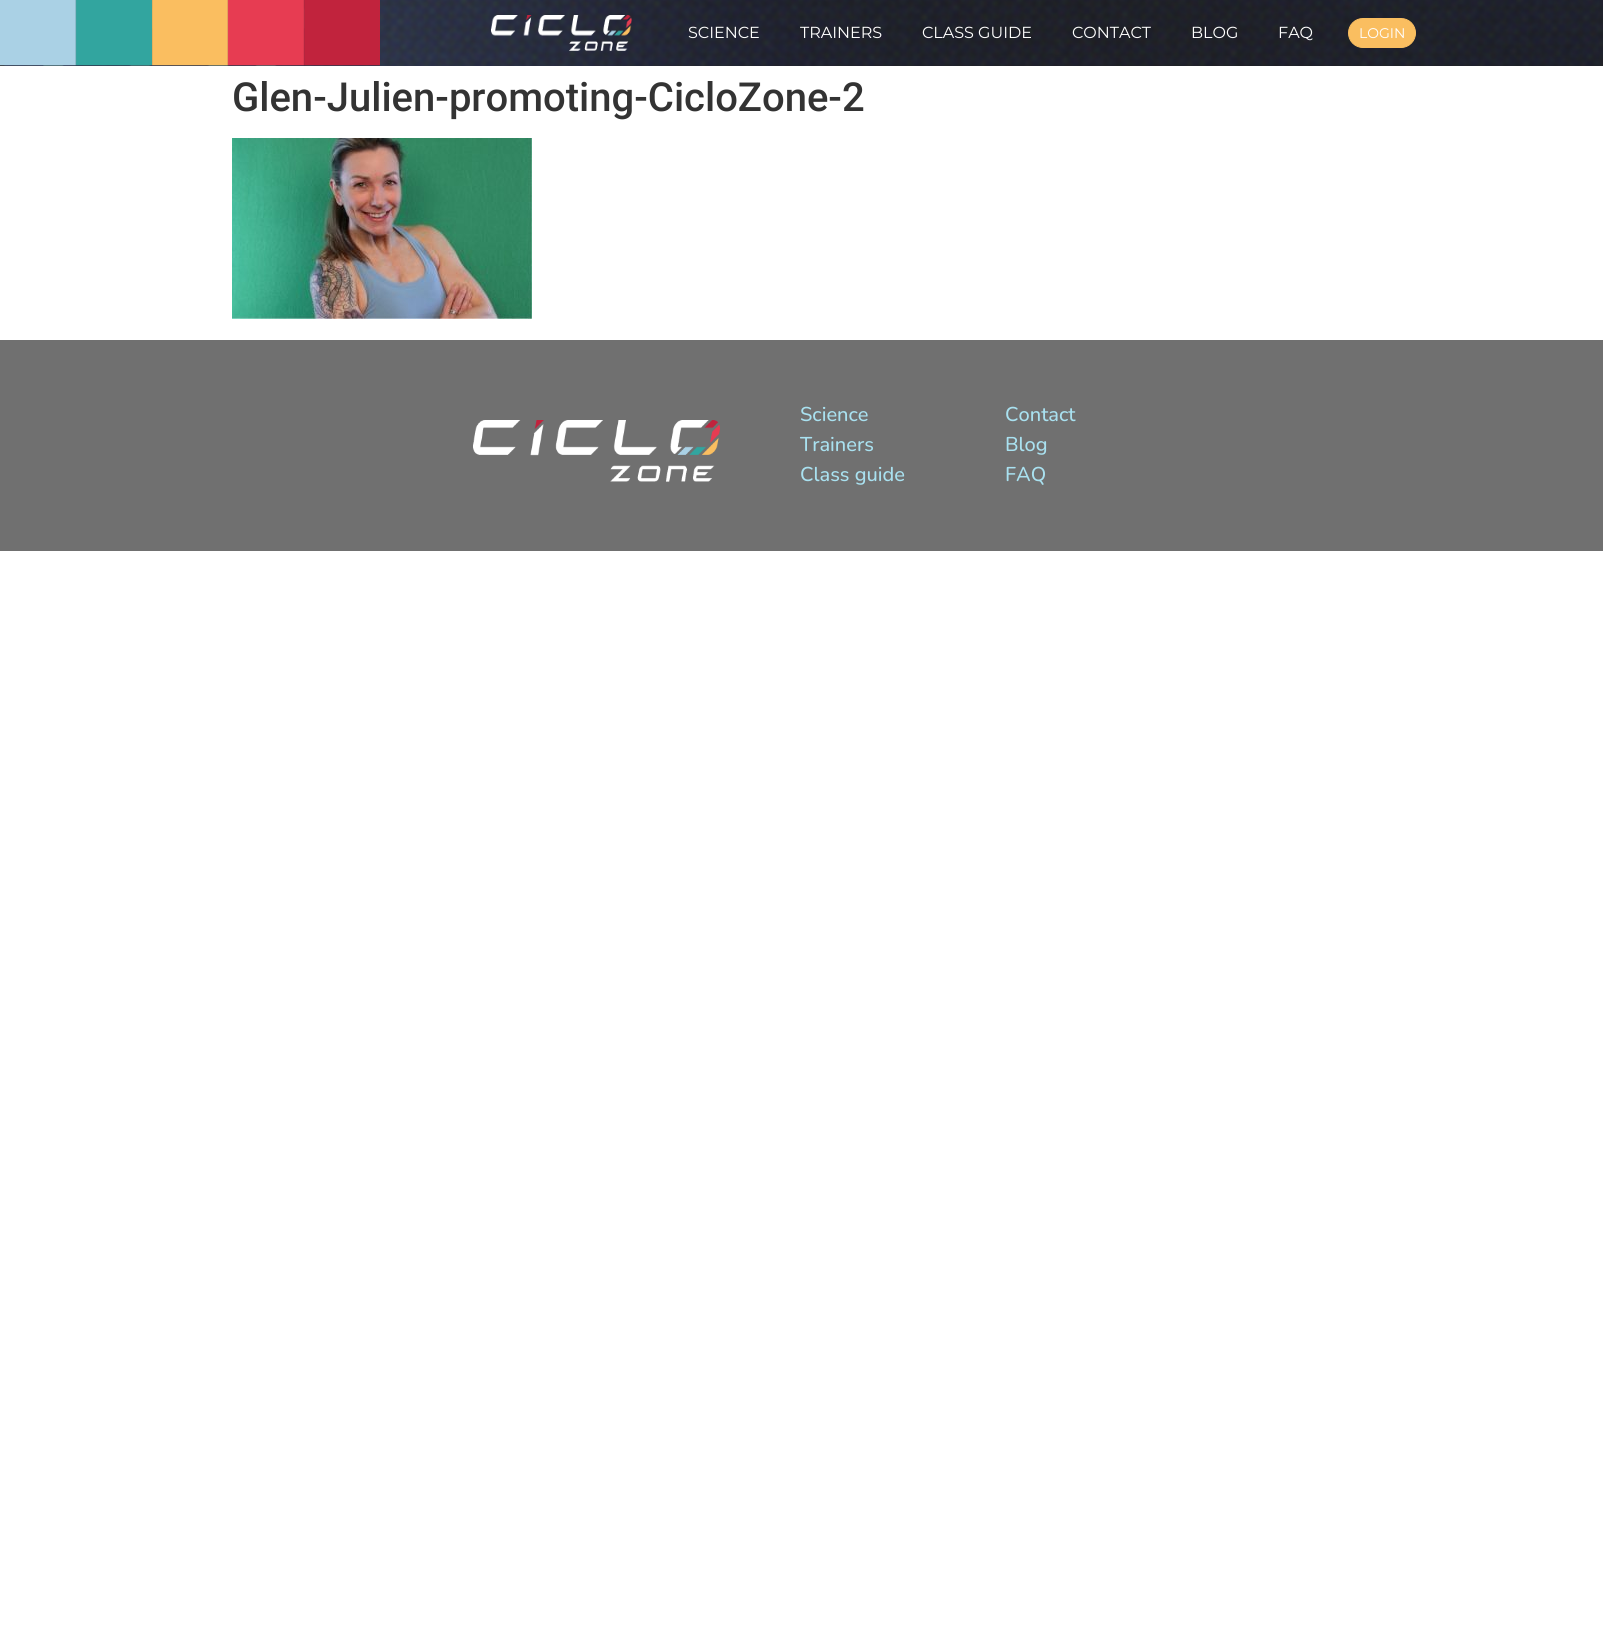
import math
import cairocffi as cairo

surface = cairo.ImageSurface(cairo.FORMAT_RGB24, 1603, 1645)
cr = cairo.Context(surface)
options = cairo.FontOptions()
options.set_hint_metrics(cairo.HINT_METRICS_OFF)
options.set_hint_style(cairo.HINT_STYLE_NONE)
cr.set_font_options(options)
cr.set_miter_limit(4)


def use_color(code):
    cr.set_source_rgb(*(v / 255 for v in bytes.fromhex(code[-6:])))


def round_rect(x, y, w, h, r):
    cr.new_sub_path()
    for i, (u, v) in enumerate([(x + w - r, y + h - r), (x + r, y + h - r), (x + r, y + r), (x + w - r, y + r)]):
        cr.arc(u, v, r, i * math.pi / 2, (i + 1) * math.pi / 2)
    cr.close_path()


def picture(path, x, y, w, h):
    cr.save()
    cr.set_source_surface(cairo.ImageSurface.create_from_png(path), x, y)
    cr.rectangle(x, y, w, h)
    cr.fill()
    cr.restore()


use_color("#ffffff")
cr.paint()
picture("img1.png", 0, 0, 1603, 66)
picture("img2.png", 0, 0, 380, 66)
picture("img3.png", 491, 15, 141, 36)
cr.select_font_face("Montserrat")
cr.set_font_size(16)
use_color("#ffffff")
cr.move_to(688, 38)
cr.show_text("SCIENCE")
cr.move_to(800, 38)
cr.show_text("TRAINERS")
cr.move_to(922, 38)
cr.show_text("CLASS GUIDE")
cr.move_to(1072, 38)
cr.show_text("CONTACT")
cr.move_to(1191, 38)
cr.show_text("BLOG")
cr.move_to(1278, 38)
cr.show_text("FAQ")
use_color("#fabe60")
round_rect(1348.5, 18.5, 67, 29, 14.5)
cr.fill_preserve()
cr.set_line_width(1)
cr.stroke()
cr.set_font_size(14)
use_color("#ffffff")
cr.move_to(1359, 38)
cr.show_text("LOGIN")
cr.select_font_face("Roboto Medium")
cr.set_font_size(40)
use_color("#333333")
cr.move_to(232, 111)
cr.show_text("Glen-Julien-promoting-CicloZone-2")
picture("img4.png", 232, 138, 300, 181)
use_color("#707070")
cr.rectangle(0, 340, 1603, 211)
cr.fill()
picture("img5.png", 473, 420, 247, 62)
cr.select_font_face("Nunito Medium")
cr.set_font_size(20)
use_color("#a9e1f0")
cr.move_to(800, 421)
cr.show_text("Science")
cr.move_to(800, 451)
cr.show_text("Trainers")
cr.move_to(800, 481)
cr.show_text("Class guide")
cr.move_to(1005, 421)
cr.show_text("Contact")
cr.move_to(1005, 451)
cr.show_text("Blog")
cr.move_to(1005, 481)
cr.show_text("FAQ")
surface.write_to_png("result.png")
